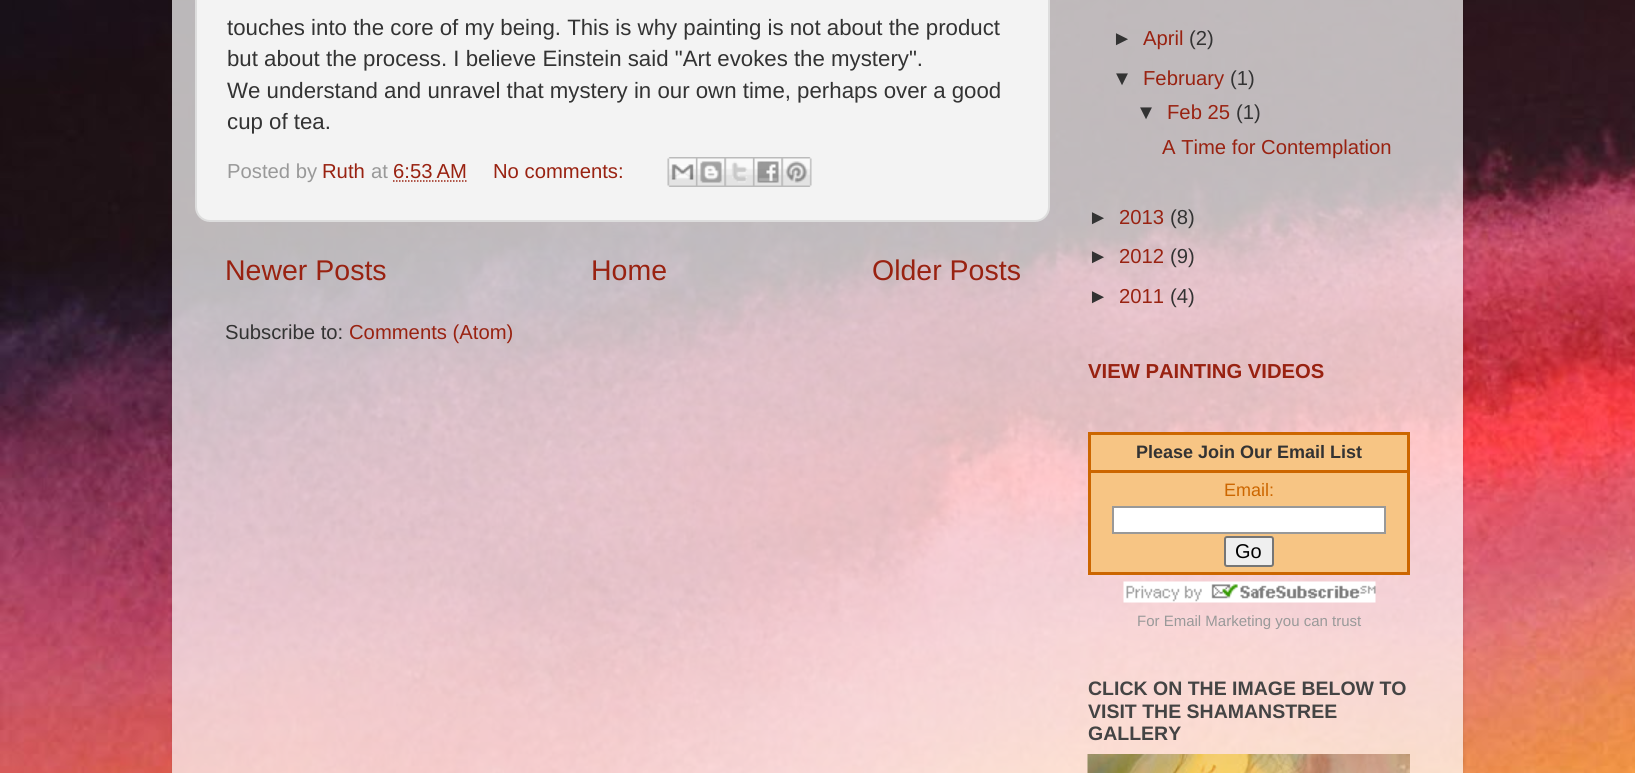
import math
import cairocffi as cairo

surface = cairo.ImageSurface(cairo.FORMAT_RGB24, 1635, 773)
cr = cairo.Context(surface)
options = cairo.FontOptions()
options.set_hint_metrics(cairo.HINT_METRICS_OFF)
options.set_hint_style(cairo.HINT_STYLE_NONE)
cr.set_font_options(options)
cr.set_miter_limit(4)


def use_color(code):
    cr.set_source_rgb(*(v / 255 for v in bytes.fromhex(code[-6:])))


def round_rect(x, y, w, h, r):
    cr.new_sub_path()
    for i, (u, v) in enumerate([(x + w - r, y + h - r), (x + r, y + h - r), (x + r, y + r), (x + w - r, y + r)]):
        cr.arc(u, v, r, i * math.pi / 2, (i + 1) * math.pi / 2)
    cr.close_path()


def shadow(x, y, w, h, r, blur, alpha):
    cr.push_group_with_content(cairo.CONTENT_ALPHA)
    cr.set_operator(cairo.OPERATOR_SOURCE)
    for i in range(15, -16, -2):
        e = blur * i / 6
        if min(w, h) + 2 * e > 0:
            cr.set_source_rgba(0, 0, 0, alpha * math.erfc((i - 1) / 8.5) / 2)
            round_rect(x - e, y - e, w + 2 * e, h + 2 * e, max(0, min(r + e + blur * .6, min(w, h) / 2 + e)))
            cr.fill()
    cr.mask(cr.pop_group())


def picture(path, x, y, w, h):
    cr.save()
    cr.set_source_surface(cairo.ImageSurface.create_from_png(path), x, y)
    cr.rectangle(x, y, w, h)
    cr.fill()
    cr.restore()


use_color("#ffffff")
cr.paint()
picture("img1.png", 0, 0, 1635, 773)
cr.save()
cr.set_fill_rule(cairo.FILL_RULE_EVEN_ODD)
cr.new_path()
cr.move_to(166, 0)
cr.line_to(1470, 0)
cr.line_to(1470, 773)
cr.line_to(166, 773)
cr.close_path()
cr.move_to(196, -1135)
cr.line_to(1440, -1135)
cr.curve_to(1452.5, -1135, 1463, -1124.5, 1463, -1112)
cr.line_to(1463, 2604)
cr.curve_to(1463, 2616.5, 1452.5, 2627, 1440, 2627)
cr.line_to(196, 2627)
cr.curve_to(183.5, 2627, 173, 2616.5, 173, 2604)
cr.line_to(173, -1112)
cr.curve_to(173, -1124.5, 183.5, -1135, 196, -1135)
cr.close_path()
cr.clip()
use_color("#000000")
shadow(173, -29, 1290, 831, 23, 2, 0.15)
cr.restore()
cr.set_source_rgba(1, 1, 1, 0.7)
cr.rectangle(172, 0, 1291, 773)
cr.fill()
use_color("#f3f3f3")
round_rect(196, -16, 853, 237, 14)
cr.fill_preserve()
use_color("#dddddd")
cr.stroke()
cr.select_font_face("Liberation Sans")
cr.set_font_size(22.25)
use_color("#333333")
cr.move_to(227, 35)
cr.show_text("touches into the core of my being. This is why painting is not about the product")
cr.move_to(227, 66)
cr.show_text("but about the process. I believe Einstein said \"Art evokes the mystery\".")
cr.move_to(227, 98)
cr.show_text("We understand and unravel that mystery in our own time, perhaps over a good")
cr.move_to(227, 129)
cr.show_text("cup of tea.")
cr.set_font_size(20.25)
use_color("#999999")
cr.move_to(227, 178)
cr.show_text("Posted by")
use_color("#992211")
cr.move_to(322, 178)
cr.show_text("Ruth")
use_color("#999999")
cr.move_to(371, 178)
cr.show_text("at")
use_color("#992211")
cr.move_to(393, 178)
cr.show_text("6:53 AM")
cr.new_path()
cr.move_to(393, 181)
cr.line_to(467, 181)
cr.set_line_width(1.5)
cr.set_dash([1.5, 1.5])
cr.stroke()
cr.move_to(493, 178)
cr.show_text("No comments:")
picture("img2.png", 667, 157, 29, 30)
picture("img3.png", 696, 157, 29, 30)
picture("img4.png", 724, 157, 29, 30)
picture("img5.png", 753, 157, 29, 30)
picture("img6.png", 781, 157, 31, 30)
cr.set_font_size(28.5)
cr.move_to(225, 280)
cr.show_text("Newer Posts")
cr.move_to(591, 280)
cr.show_text("Home")
cr.move_to(872, 280)
cr.show_text("Older Posts")
cr.set_font_size(20.25)
use_color("#333333")
cr.move_to(225, 339)
cr.show_text("Subscribe to:")
use_color("#992211")
cr.move_to(349, 339)
cr.show_text("Comments (Atom)")
use_color("#333333")
cr.move_to(1112, 45)
cr.show_text("►")
use_color("#992211")
cr.move_to(1143, 45)
cr.show_text("April")
use_color("#333333")
cr.move_to(1189, 45)
cr.show_text("(2)")
cr.move_to(1112, 85)
cr.show_text("▼")
use_color("#992211")
cr.move_to(1143, 85)
cr.show_text("February")
use_color("#333333")
cr.move_to(1230, 85)
cr.show_text("(1)")
cr.move_to(1136, 119)
cr.show_text("▼")
use_color("#992211")
cr.move_to(1167, 119)
cr.show_text("Feb 25")
use_color("#333333")
cr.move_to(1236, 119)
cr.show_text("(1)")
use_color("#992211")
cr.move_to(1162, 154)
cr.show_text("A Time for Contemplation")
use_color("#333333")
cr.move_to(1088, 224)
cr.show_text("►")
use_color("#992211")
cr.move_to(1119, 224)
cr.show_text("2013")
use_color("#333333")
cr.move_to(1170, 224)
cr.show_text("(8)")
cr.move_to(1088, 263)
cr.show_text("►")
use_color("#992211")
cr.move_to(1119, 263)
cr.show_text("2012")
use_color("#333333")
cr.move_to(1170, 263)
cr.show_text("(9)")
cr.move_to(1088, 303)
cr.show_text("►")
use_color("#992211")
cr.move_to(1119, 303)
cr.show_text("2011")
use_color("#333333")
cr.move_to(1170, 303)
cr.show_text("(4)")
cr.select_font_face("Liberation Sans", cairo.FONT_SLANT_NORMAL, cairo.FONT_WEIGHT_BOLD)
use_color("#992211")
cr.move_to(1088, 378)
cr.show_text("VIEW PAINTING VIDEOS")
use_color("#f7c584")
cr.rectangle(1089.5, 433.5, 319, 140)
cr.fill_preserve()
use_color("#cc6600")
cr.set_line_width(3)
cr.set_dash([])
cr.stroke()
cr.set_font_size(18)
use_color("#333333")
cr.move_to(1136, 458)
cr.show_text("Please Join Our Email List")
use_color("#cc6600")
cr.rectangle(1091, 470, 316, 3)
cr.fill()
cr.select_font_face("Liberation Sans")
cr.move_to(1224, 496)
cr.show_text("Email:")
use_color("#ffffff")
cr.rectangle(1113, 507, 272, 26)
cr.fill_preserve()
use_color("#999999")
cr.set_line_width(2)
cr.stroke()
use_color("#efefef")
round_rect(1225, 537, 48, 29, 2)
cr.fill_preserve()
use_color("#767676")
cr.stroke()
cr.set_font_size(20)
use_color("#000000")
cr.move_to(1235, 558)
cr.show_text("Go")
picture("img7.png", 1123, 581, 253, 22)
cr.set_font_size(15)
use_color("#999999")
cr.move_to(1137, 626)
cr.show_text("For Email Marketing you can trust")
cr.select_font_face("Liberation Sans", cairo.FONT_SLANT_NORMAL, cairo.FONT_WEIGHT_BOLD)
cr.set_font_size(19.5)
use_color("#444444")
cr.move_to(1088, 695)
cr.show_text("CLICK ON THE IMAGE BELOW TO")
cr.move_to(1088, 718)
cr.show_text("VISIT THE SHAMANSTREE")
cr.move_to(1088, 740)
cr.show_text("GALLERY")
picture("img8.png", 1087, 754, 323, 19)
surface.write_to_png("result.png")
